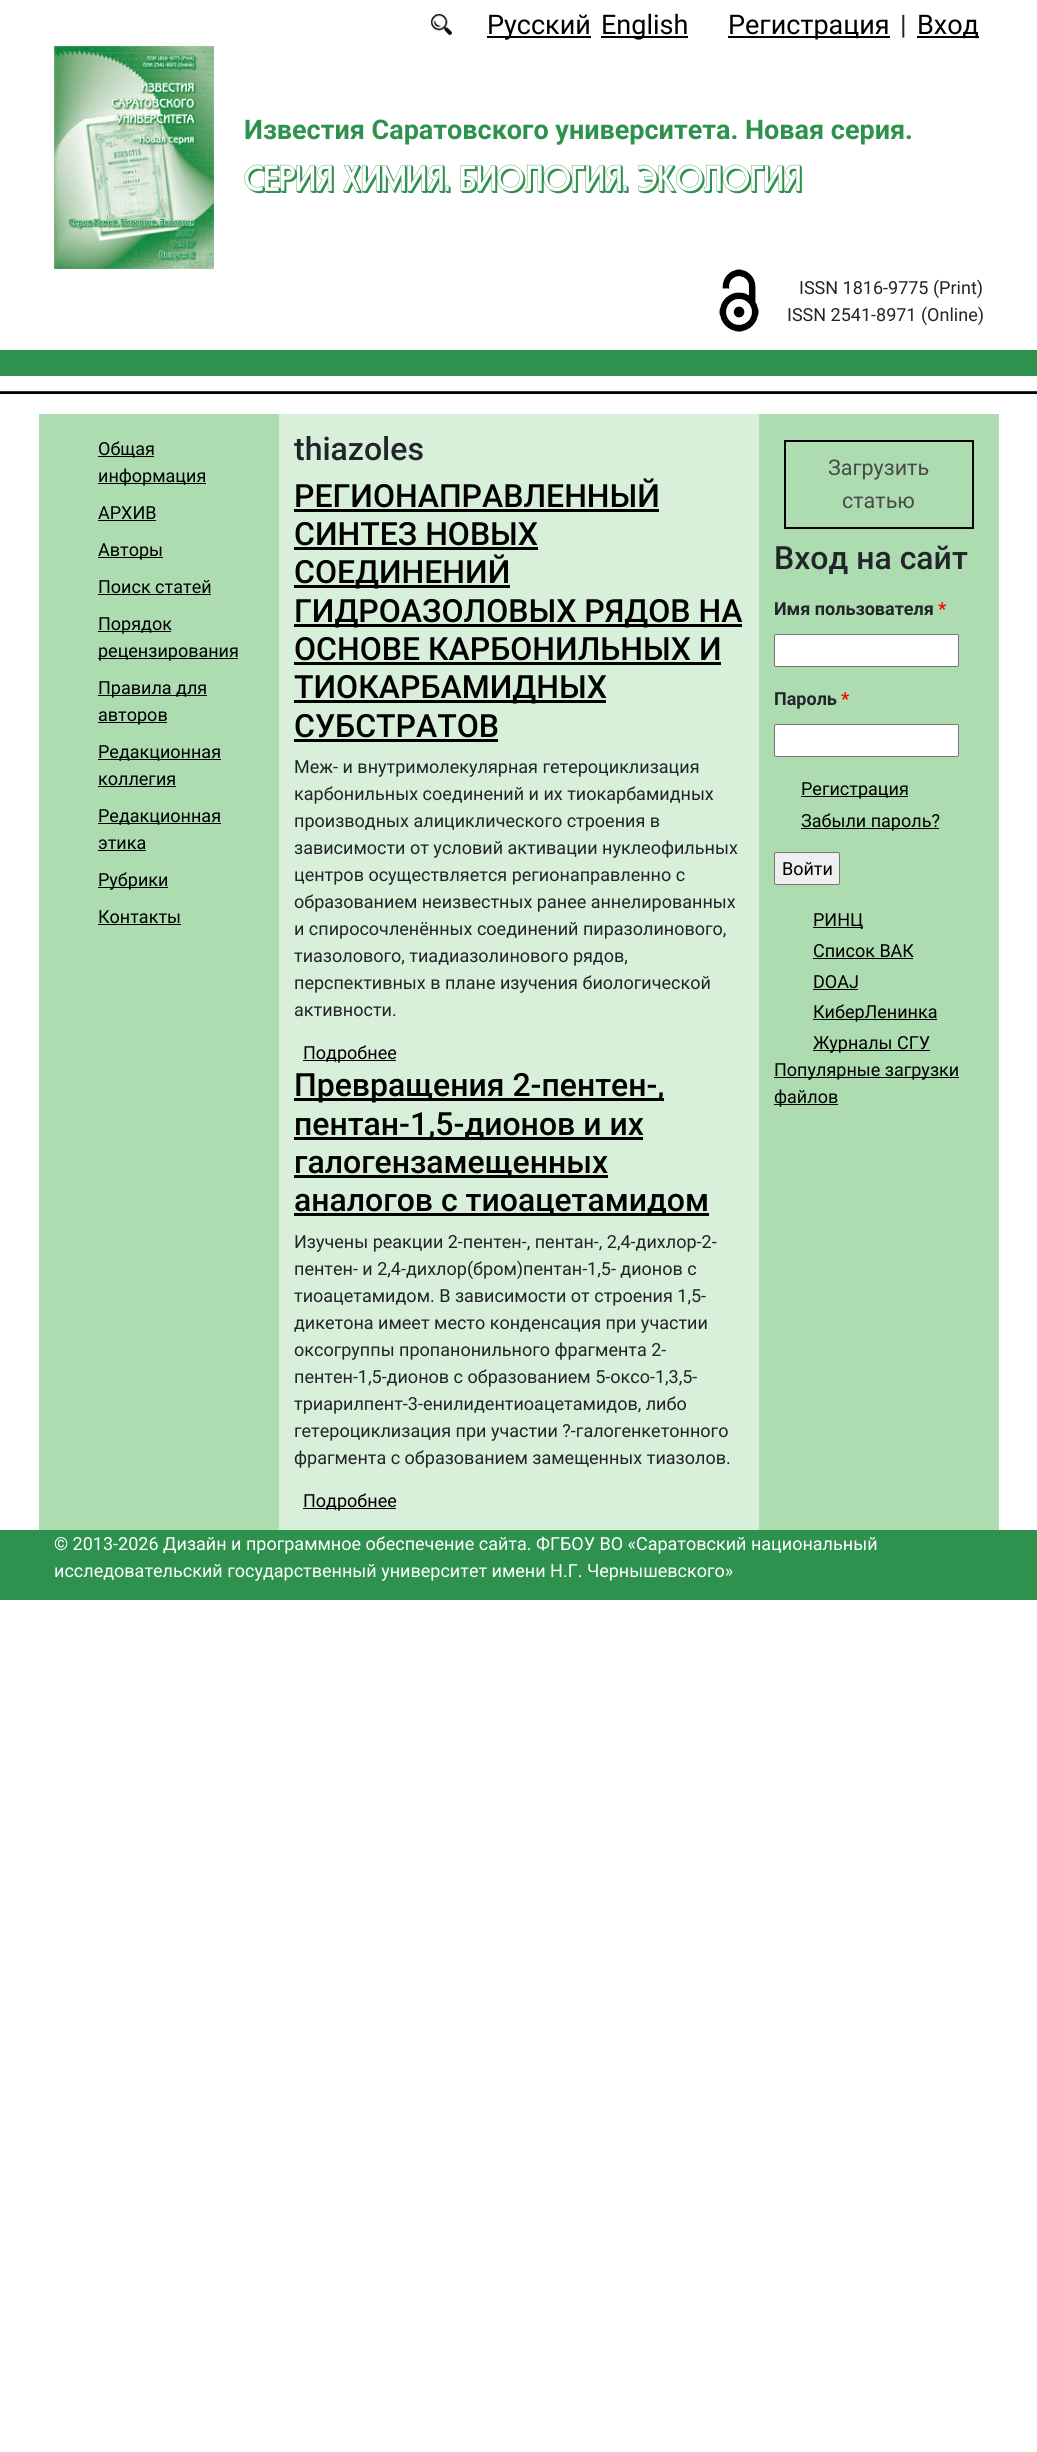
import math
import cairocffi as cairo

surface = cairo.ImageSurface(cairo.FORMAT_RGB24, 1037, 2452)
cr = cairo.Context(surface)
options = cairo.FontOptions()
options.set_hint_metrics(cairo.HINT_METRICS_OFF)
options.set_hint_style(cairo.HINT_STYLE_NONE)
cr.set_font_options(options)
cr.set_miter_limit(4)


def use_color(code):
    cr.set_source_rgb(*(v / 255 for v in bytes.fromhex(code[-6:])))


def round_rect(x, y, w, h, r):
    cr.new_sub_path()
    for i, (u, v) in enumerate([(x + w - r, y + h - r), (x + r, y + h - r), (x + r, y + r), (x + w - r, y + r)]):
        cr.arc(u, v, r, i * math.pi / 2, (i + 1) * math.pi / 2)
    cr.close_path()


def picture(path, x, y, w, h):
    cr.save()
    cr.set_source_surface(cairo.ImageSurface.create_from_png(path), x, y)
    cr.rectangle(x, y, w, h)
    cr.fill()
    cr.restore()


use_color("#ffffff")
cr.paint()
picture("img1.png", 431, 14, 21, 21)
use_color("#000000")
cr.rectangle(487, 36, 104, 2)
cr.fill()
cr.select_font_face("Roboto")
cr.set_font_size(27)
cr.move_to(487, 34)
cr.show_text("Русский")
cr.rectangle(601, 36, 87, 2)
cr.fill()
cr.move_to(601, 34)
cr.show_text("English")
cr.rectangle(728, 36, 162, 2)
cr.fill()
cr.move_to(728, 34)
cr.show_text("Регистрация")
use_color("#212529")
cr.move_to(900, 34)
cr.show_text("|")
use_color("#000000")
cr.rectangle(917, 36, 62, 2)
cr.fill()
cr.move_to(917, 34)
cr.show_text("Вход")
picture("img2.png", 54, 46, 160, 223)
cr.select_font_face("Roboto", cairo.FONT_SLANT_NORMAL, cairo.FONT_WEIGHT_BOLD)
use_color("#2e924e")
cr.move_to(244, 139)
cr.show_text("Известия Саратовского университета. Новая серия.")
cr.select_font_face("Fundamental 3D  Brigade")
cr.set_font_size(36)
cr.move_to(244, 191)
cr.show_text("СЕРИЯ ХИМИЯ. БИОЛОГИЯ. ЭКОЛОГИЯ")
picture("img3.png", 719, 269, 40, 63)
cr.select_font_face("Roboto")
cr.set_font_size(18)
use_color("#212529")
cr.move_to(799, 294)
cr.show_text("ISSN 1816-9775 (Print)")
cr.move_to(787, 321)
cr.show_text("ISSN 2541-8971 (Online)")
use_color("#2e924e")
cr.rectangle(0, 350, 1037, 26)
cr.fill()
use_color("#333333")
cr.rectangle(0, 391, 1037, 1)
cr.fill()
use_color("#000000")
cr.rectangle(0, 392, 1037, 2)
cr.fill()
use_color("#aedcb1")
cr.rectangle(39, 414, 240, 1116)
cr.fill()
use_color("#000000")
cr.rectangle(98, 456, 56, 1)
cr.fill()
cr.move_to(98, 455)
cr.show_text("Общая")
cr.rectangle(98, 483, 108, 1)
cr.fill()
cr.move_to(98, 482)
cr.show_text("информация")
cr.move_to(98, 519)
cr.show_text("АРХИВ")
cr.rectangle(98, 520, 58, 1)
cr.fill()
cr.rectangle(98, 557, 65, 1)
cr.fill()
cr.move_to(98, 556)
cr.show_text("Авторы")
cr.move_to(98, 593)
cr.show_text("Поиск статей")
cr.rectangle(98, 594, 113, 1)
cr.fill()
cr.rectangle(98, 631, 73, 1)
cr.fill()
cr.move_to(98, 630)
cr.show_text("Порядок")
cr.rectangle(98, 658, 140, 1)
cr.fill()
cr.move_to(98, 657)
cr.show_text("рецензирования")
cr.rectangle(98, 695, 109, 1)
cr.fill()
cr.move_to(98, 694)
cr.show_text("Правила для")
cr.rectangle(98, 722, 69, 1)
cr.fill()
cr.move_to(98, 721)
cr.show_text("авторов")
cr.rectangle(98, 759, 123, 1)
cr.fill()
cr.move_to(98, 758)
cr.show_text("Редакционная")
cr.move_to(98, 785)
cr.show_text("коллегия")
cr.rectangle(98, 786, 78, 1)
cr.fill()
cr.rectangle(98, 823, 123, 1)
cr.fill()
cr.move_to(98, 822)
cr.show_text("Редакционная")
cr.move_to(98, 849)
cr.show_text("этика")
cr.rectangle(98, 850, 48, 1)
cr.fill()
cr.rectangle(98, 887, 70, 1)
cr.fill()
cr.move_to(98, 886)
cr.show_text("Рубрики")
cr.move_to(98, 923)
cr.show_text("Контакты")
cr.rectangle(98, 924, 83, 1)
cr.fill()
use_color("#d8f0da")
cr.rectangle(279, 414, 480, 1116)
cr.fill()
cr.select_font_face("Roboto Medium")
cr.set_font_size(32)
use_color("#212529")
cr.move_to(294, 460)
cr.show_text("thiazoles")
use_color("#000000")
cr.move_to(294, 507)
cr.show_text("РЕГИОНАПРАВЛЕННЫЙ")
cr.rectangle(294, 509, 365, 3)
cr.fill()
cr.move_to(294, 545)
cr.show_text("СИНТЕЗ НОВЫХ")
cr.rectangle(294, 547, 244, 3)
cr.fill()
cr.rectangle(294, 585, 216, 3)
cr.fill()
cr.move_to(294, 583)
cr.show_text("СОЕДИНЕНИЙ")
cr.rectangle(294, 624, 448, 3)
cr.fill()
cr.move_to(294, 622)
cr.show_text("ГИДРОАЗОЛОВЫХ РЯДОВ НА")
cr.move_to(294, 660)
cr.show_text("ОСНОВЕ КАРБОНИЛЬНЫХ И")
cr.rectangle(294, 662, 427, 3)
cr.fill()
cr.rectangle(294, 700, 312, 3)
cr.fill()
cr.move_to(294, 698)
cr.show_text("ТИОКАРБАМИДНЫХ")
cr.move_to(294, 737)
cr.show_text("СУБСТРАТОВ")
cr.rectangle(294, 739, 204, 3)
cr.fill()
cr.select_font_face("Roboto")
cr.set_font_size(18)
use_color("#212529")
cr.move_to(294, 773)
cr.show_text("Меж- и внутримолекулярная гетероциклизация")
cr.move_to(294, 800)
cr.show_text("карбонильных соединений и их тиокарбамидных")
cr.move_to(294, 827)
cr.show_text("производных алициклического строения в")
cr.move_to(294, 854)
cr.show_text("зависимости от условий активации нуклеофильных")
cr.move_to(294, 881)
cr.show_text("центров осуществляется регионаправленно с")
cr.move_to(294, 908)
cr.show_text("образованием неизвестных ранее аннелированных")
cr.move_to(294, 935)
cr.show_text("и спиросочленённых соединений пиразолинового,")
cr.move_to(294, 962)
cr.show_text("тиазолового, тиадиазолинового рядов,")
cr.move_to(294, 989)
cr.show_text("перспективных в плане изучения биологической")
cr.move_to(294, 1016)
cr.show_text("активности.")
use_color("#000000")
cr.rectangle(303, 1060, 93, 1)
cr.fill()
cr.move_to(303, 1059)
cr.show_text("Подробнее")
cr.rectangle(294, 1098, 370, 3)
cr.fill()
cr.select_font_face("Roboto Medium")
cr.set_font_size(32)
cr.move_to(294, 1096)
cr.show_text("Превращения 2-пентен-,")
cr.rectangle(294, 1137, 349, 3)
cr.fill()
cr.move_to(294, 1135)
cr.show_text("пентан-1,5-дионов и их")
cr.rectangle(294, 1175, 314, 3)
cr.fill()
cr.move_to(294, 1173)
cr.show_text("галогензамещенных")
cr.rectangle(294, 1213, 415, 3)
cr.fill()
cr.move_to(294, 1211)
cr.show_text("аналогов с тиоацетамидом")
cr.select_font_face("Roboto")
cr.set_font_size(18)
use_color("#212529")
cr.move_to(294, 1248)
cr.show_text("Изучены реакции 2-пентен-, пентан-, 2,4-дихлор-2-")
cr.move_to(294, 1275)
cr.show_text("пентен- и 2,4-дихлор(бром)пентан-1,5- дионов с")
cr.move_to(294, 1302)
cr.show_text("тиоацетамидом. В зависимости от строения 1,5-")
cr.move_to(294, 1329)
cr.show_text("дикетона имеет место конденсация при участии")
cr.move_to(294, 1356)
cr.show_text("оксогруппы пропанонильного фрагмента 2-")
cr.move_to(294, 1383)
cr.show_text("пентен-1,5-дионов с образованием 5-оксо-1,3,5-")
cr.move_to(294, 1410)
cr.show_text("триарилпент-3-енилидентиоацетамидов, либо")
cr.move_to(294, 1437)
cr.show_text("гетероциклизация при участии ?-галогенкетонного")
cr.move_to(294, 1464)
cr.show_text("фрагмента с образованием замещенных тиазолов.")
use_color("#000000")
cr.rectangle(303, 1508, 93, 1)
cr.fill()
cr.move_to(303, 1507)
cr.show_text("Подробнее")
use_color("#aedcb1")
cr.rectangle(759, 414, 240, 1116)
cr.fill()
cr.rectangle(785, 441, 188, 87)
use_color("#000000")
cr.stroke()
cr.set_font_size(21.5)
use_color("#4a4a4a")
cr.move_to(828, 475)
cr.show_text("Загрузить")
cr.move_to(842, 508)
cr.show_text("статью")
cr.select_font_face("Roboto Medium")
cr.set_font_size(32)
use_color("#212529")
cr.move_to(774, 569)
cr.show_text("Вход на сайт")
cr.select_font_face("Roboto", cairo.FONT_SLANT_NORMAL, cairo.FONT_WEIGHT_BOLD)
cr.set_font_size(18)
cr.move_to(774, 615)
cr.show_text("Имя пользователя")
use_color("#ff0000")
cr.move_to(938, 615)
cr.show_text("*")
use_color("#ffffff")
round_rect(774.5, 634.5, 184, 32, 1.5)
cr.fill_preserve()
use_color("#767676")
cr.set_line_width(1)
cr.stroke()
use_color("#212529")
cr.move_to(774, 705)
cr.show_text("Пароль")
use_color("#ff0000")
cr.move_to(841, 705)
cr.show_text("*")
use_color("#ffffff")
round_rect(774.5, 724.5, 184, 32, 1.5)
cr.fill_preserve()
use_color("#767676")
cr.stroke()
use_color("#000000")
cr.rectangle(801, 796, 107, 1)
cr.fill()
cr.select_font_face("Roboto")
cr.move_to(801, 795)
cr.show_text("Регистрация")
cr.rectangle(801, 828, 138, 1)
cr.fill()
cr.move_to(801, 827)
cr.show_text("Забыли пароль?")
use_color("#efefef")
round_rect(774.5, 852.5, 65, 32, 1.5)
cr.fill_preserve()
use_color("#767676")
cr.stroke()
use_color("#000000")
cr.move_to(782, 875)
cr.show_text("Войти")
cr.rectangle(813, 927, 50, 1)
cr.fill()
cr.move_to(813, 926)
cr.show_text("РИНЦ")
cr.move_to(813, 957)
cr.show_text("Список ВАК")
cr.rectangle(813, 958, 100, 1)
cr.fill()
cr.move_to(813, 988)
cr.show_text("DOAJ")
cr.rectangle(813, 989, 45, 1)
cr.fill()
cr.rectangle(813, 1019, 124, 1)
cr.fill()
cr.move_to(813, 1018)
cr.show_text("КиберЛенинка")
cr.rectangle(813, 1050, 117, 1)
cr.fill()
cr.move_to(813, 1049)
cr.show_text("Журналы СГУ")
cr.rectangle(774, 1077, 185, 1)
cr.fill()
cr.move_to(774, 1076)
cr.show_text("Популярные загрузки")
cr.rectangle(774, 1104, 64, 1)
cr.fill()
cr.move_to(774, 1103)
cr.show_text("файлов")
use_color("#2e924e")
cr.rectangle(0, 1530, 1037, 70)
cr.fill()
use_color("#ffffff")
cr.move_to(54, 1550)
cr.show_text("© 2013-2026 Дизайн и программное обеспечение сайта. ФГБОУ ВО «Саратовский национальный")
cr.move_to(54, 1577)
cr.show_text("исследовательский государственный университет имени Н.Г. Чернышевского»")
surface.write_to_png("result.png")
